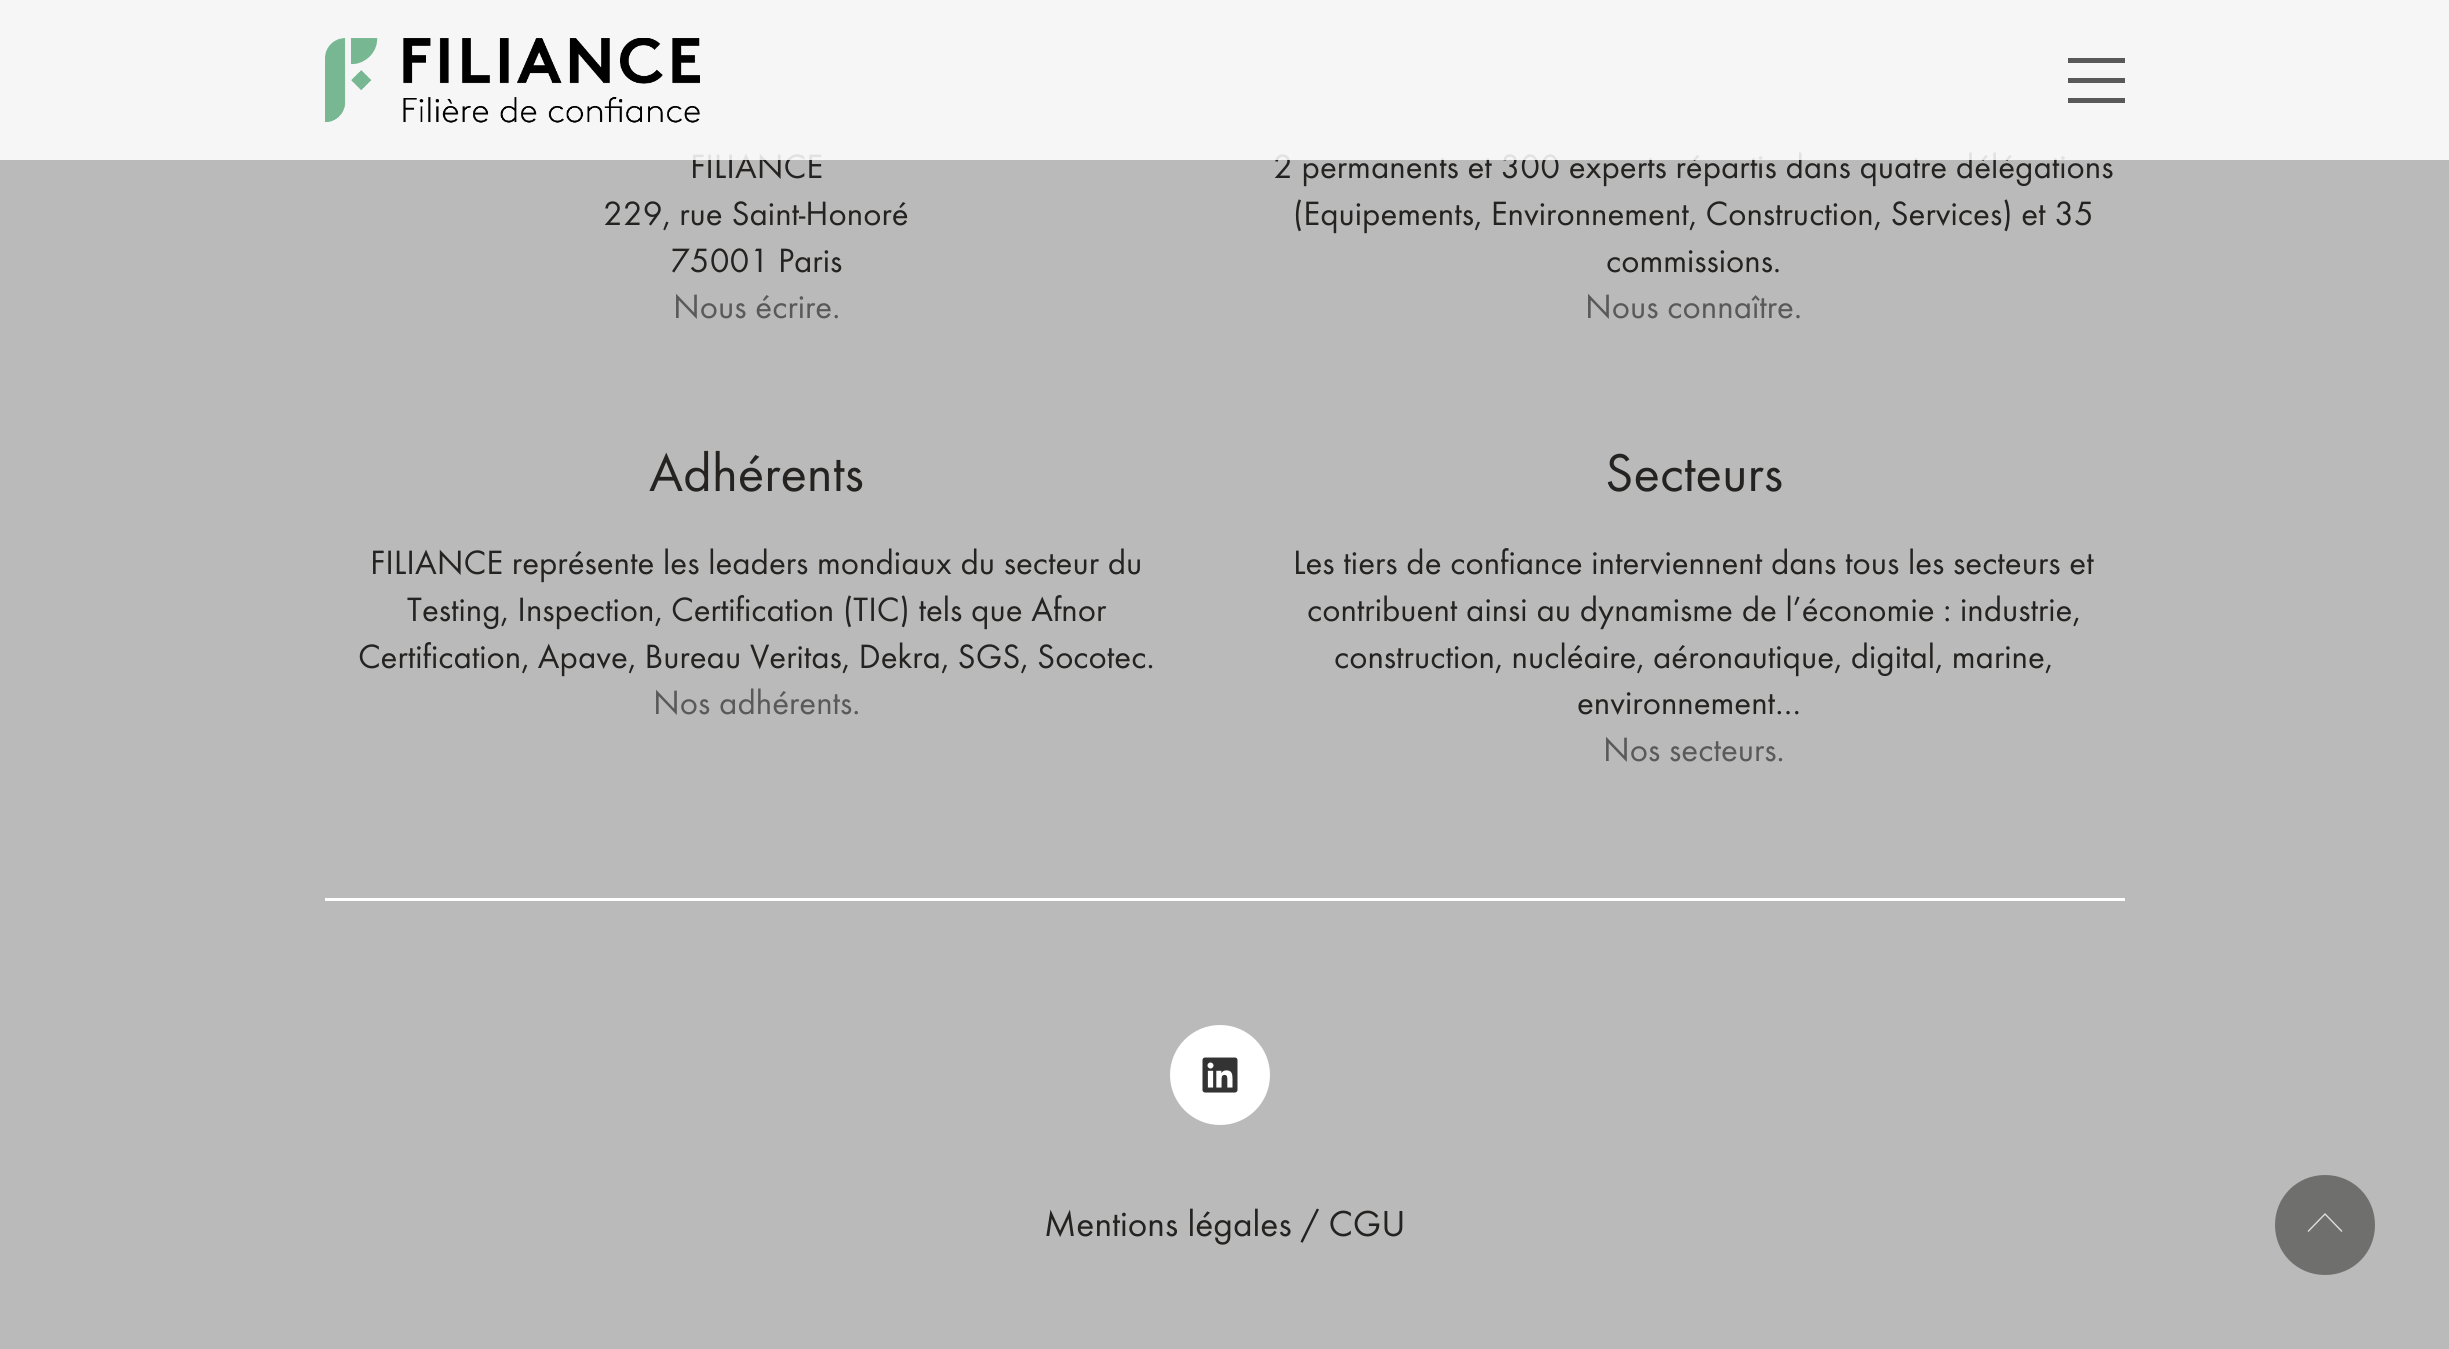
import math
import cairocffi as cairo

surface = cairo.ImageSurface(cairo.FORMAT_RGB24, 2449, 1349)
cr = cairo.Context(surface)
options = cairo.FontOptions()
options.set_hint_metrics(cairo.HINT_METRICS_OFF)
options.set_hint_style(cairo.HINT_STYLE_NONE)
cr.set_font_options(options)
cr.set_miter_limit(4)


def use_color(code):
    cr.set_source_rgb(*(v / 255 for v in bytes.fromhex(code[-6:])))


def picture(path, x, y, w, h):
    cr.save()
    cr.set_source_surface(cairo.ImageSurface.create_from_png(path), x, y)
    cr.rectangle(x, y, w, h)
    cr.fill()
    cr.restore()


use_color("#bababa")
cr.paint()
cr.select_font_face("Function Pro")
cr.set_font_size(35)
use_color("#242321")
cr.move_to(690, 178)
cr.show_text("FILIANCE")
cr.move_to(1273, 178)
cr.show_text("2 permanents et 300 experts répartis dans quatre délégations")
cr.set_source_rgba(1, 1, 1, 0.86)
cr.rectangle(0, 0, 2449, 160)
cr.fill()
picture("img1.png", 325, 38, 375, 85)
use_color("#595959")
cr.rectangle(2068, 58, 57, 5)
cr.fill()
cr.rectangle(2068, 78, 57, 5)
cr.fill()
cr.rectangle(2068, 98, 57, 5)
cr.fill()
use_color("#242321")
cr.move_to(603, 225)
cr.show_text("229, rue Saint-Honoré")
cr.move_to(670, 272)
cr.show_text("75001 Paris")
use_color("#595959")
cr.move_to(673, 318)
cr.show_text("Nous écrire.")
use_color("#242321")
cr.move_to(1293, 225)
cr.show_text("(Equipements, Environnement, Construction, Services) et 35")
cr.move_to(1606, 272)
cr.show_text("commissions.")
use_color("#595959")
cr.move_to(1585, 318)
cr.show_text("Nous connaître.")
cr.set_font_size(55)
use_color("#242321")
cr.move_to(649, 491)
cr.show_text("Adhérents")
cr.set_font_size(35)
cr.move_to(370, 574)
cr.show_text("FILIANCE représente les leaders mondiaux du secteur du")
cr.move_to(407, 621)
cr.show_text("Testing, Inspection, Certification (TIC) tels que Afnor")
cr.move_to(358, 668)
cr.show_text("Certification, Apave, Bureau Veritas, Dekra, SGS, Socotec.")
use_color("#595959")
cr.move_to(653, 714)
cr.show_text("Nos adhérents.")
cr.set_font_size(55)
use_color("#242321")
cr.move_to(1605, 491)
cr.show_text("Secteurs")
cr.set_font_size(35)
cr.move_to(1293, 574)
cr.show_text("Les tiers de confiance interviennent dans tous les secteurs et")
cr.move_to(1307, 621)
cr.show_text("contribuent ainsi au dynamisme de l’économie : industrie,")
cr.move_to(1334, 668)
cr.show_text("construction, nucléaire, aéronautique, digital, marine,")
cr.move_to(1577, 714)
cr.show_text("environnement…")
use_color("#595959")
cr.move_to(1603, 761)
cr.show_text("Nos secteurs.")
use_color("#ffffff")
cr.rectangle(325, 898, 1800, 3)
cr.fill()
cr.arc(1220, 1075, 50, 0, 2 * math.pi)
cr.fill()
picture("img2.png", 1202, 1057, 36, 36)
cr.set_font_size(37.5)
use_color("#242321")
cr.move_to(1044, 1236)
cr.show_text("Mentions légales")
cr.move_to(1301, 1236)
cr.show_text("/ CGU")
use_color("#6f6f6e")
cr.new_path()
cr.move_to(2325, 1275)
cr.curve_to(2297, 1275, 2275, 1253, 2275, 1225)
cr.curve_to(2275, 1197, 2297, 1175, 2325, 1175)
cr.curve_to(2353, 1175, 2375, 1197, 2375, 1225)
cr.curve_to(2375, 1253, 2353, 1275, 2325, 1275)
cr.close_path()
cr.fill()
use_color("#dddddd")
cr.new_path()
cr.move_to(2325, 1213)
cr.line_to(2342.5, 1231)
cr.line_to(2341.5, 1232)
cr.line_to(2325, 1215)
cr.line_to(2308.5, 1232)
cr.line_to(2307.5, 1231)
cr.close_path()
cr.fill()
surface.write_to_png("result.png")
